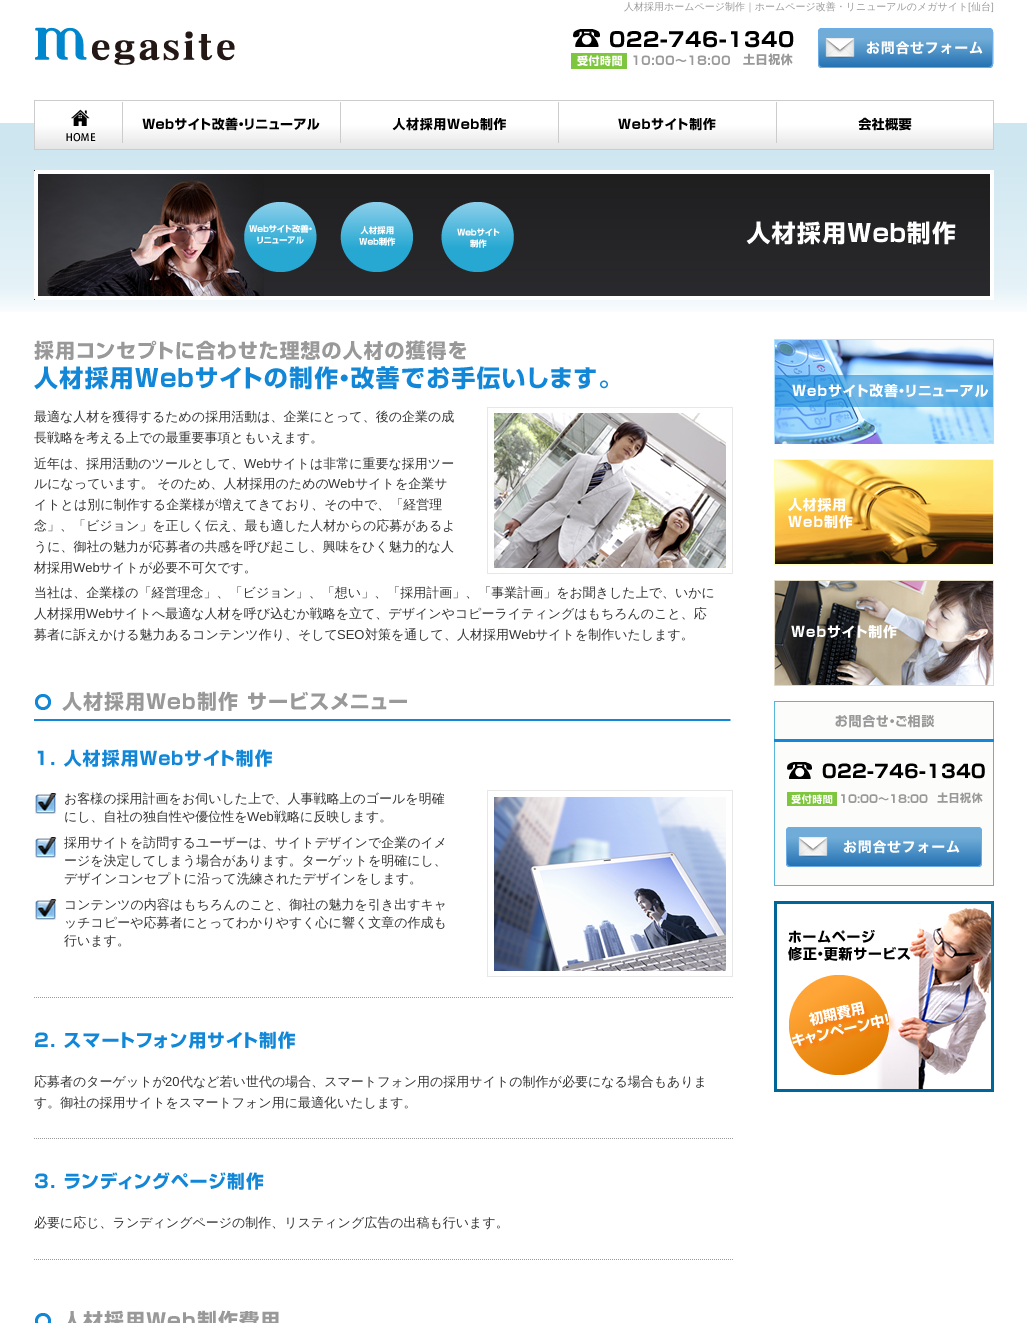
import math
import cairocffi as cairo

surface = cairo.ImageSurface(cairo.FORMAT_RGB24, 1027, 1323)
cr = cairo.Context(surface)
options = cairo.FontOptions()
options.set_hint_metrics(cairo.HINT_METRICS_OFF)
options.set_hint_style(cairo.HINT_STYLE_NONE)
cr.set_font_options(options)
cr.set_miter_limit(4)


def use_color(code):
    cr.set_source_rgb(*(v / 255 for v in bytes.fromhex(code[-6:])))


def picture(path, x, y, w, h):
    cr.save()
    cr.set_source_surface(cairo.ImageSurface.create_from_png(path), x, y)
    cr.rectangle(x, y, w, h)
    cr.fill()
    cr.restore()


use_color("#ffffff")
cr.paint()
cr.select_font_face("WenQuanYi Zen Hei Medium")
cr.set_font_size(10)
use_color("#999999")
cr.move_to(624, 10)
cr.show_text("人材採用ホームページ制作｜ホームページ改善・リニューアルのメガサイト")
cr.select_font_face("Liberation Sans")
cr.move_to(968, 10)
cr.show_text("[")
cr.select_font_face("WenQuanYi Zen Hei Medium")
cr.move_to(971, 10)
cr.show_text("仙台")
cr.select_font_face("Liberation Sans")
cr.move_to(991, 10)
cr.show_text("]")
picture("img1.png", 35, 27, 200, 38)
picture("img2.png", 571, 29, 223, 40)
picture("img3.png", 818, 28, 176, 40)
picture("img4.png", 0, 123, 1027, 189)
picture("img5.png", 34, 100, 88, 50)
picture("img6.png", 122, 100, 218, 50)
picture("img7.png", 340, 100, 218, 50)
picture("img8.png", 558, 100, 218, 50)
picture("img9.png", 776, 100, 218, 50)
picture("img10.png", 34, 170, 960, 130)
picture("img11.png", 34, 340, 574, 50)
cr.select_font_face("WenQuanYi Zen Hei Medium")
cr.set_font_size(13)
use_color("#333333")
cr.move_to(34, 421)
cr.show_text("最適な人材を獲得するための採用活動は、企業にとって、後の企業の成")
cr.move_to(34, 442)
cr.show_text("長戦略を考える上での最重要事項ともいえます。")
picture("img12.png", 487, 407, 246, 167)
cr.move_to(34, 468)
cr.show_text("近年は、採用活動のツールとして、")
cr.select_font_face("Liberation Sans")
cr.move_to(244, 468)
cr.show_text("Web")
cr.select_font_face("WenQuanYi Zen Hei Medium")
cr.move_to(270, 468)
cr.show_text("サイトは非常に重要な採用ツー")
cr.move_to(34, 488)
cr.show_text("ルになっています。 そのため、人材採用のための")
cr.select_font_face("Liberation Sans")
cr.move_to(328, 488)
cr.show_text("Web")
cr.select_font_face("WenQuanYi Zen Hei Medium")
cr.move_to(355, 488)
cr.show_text("サイトを企業サ")
cr.move_to(34, 509)
cr.show_text("イトとは別に制作する企業様が増えてきており、その中で、「経営理")
cr.move_to(34, 530)
cr.show_text("念」、「ビジョン」を正しく伝え、最も適した人材からの応募があるよ")
cr.move_to(34, 551)
cr.show_text("うに、御社の魅力が応募者の共感を呼び起こし、興味をひく魅力的な人")
cr.move_to(34, 572)
cr.show_text("材採用")
cr.select_font_face("Liberation Sans")
cr.move_to(73, 572)
cr.show_text("Web")
cr.select_font_face("WenQuanYi Zen Hei Medium")
cr.move_to(99, 572)
cr.show_text("サイトが必要不可欠です。")
cr.move_to(34, 597)
cr.show_text("当社は、企業様の「経営理念」、「ビジョン」、「想い」、「採用計画」、「事業計画」をお聞きした上で、いかに")
cr.move_to(34, 618)
cr.show_text("人材採用")
cr.select_font_face("Liberation Sans")
cr.move_to(86, 618)
cr.show_text("Web")
cr.select_font_face("WenQuanYi Zen Hei Medium")
cr.move_to(112, 618)
cr.show_text("サイトへ最適な人材を呼び込むか戦略を立て、デザインやコピーライティングはもちろんのこと、応")
cr.move_to(34, 639)
cr.show_text("募者に訴えかける魅力あるコンテンツ作り、そして")
cr.select_font_face("Liberation Sans")
cr.move_to(337, 639)
cr.show_text("SEO")
cr.select_font_face("WenQuanYi Zen Hei Medium")
cr.move_to(365, 639)
cr.show_text("対策を通して、人材採用")
cr.select_font_face("Liberation Sans")
cr.move_to(509, 639)
cr.show_text("Web")
cr.select_font_face("WenQuanYi Zen Hei Medium")
cr.move_to(535, 639)
cr.show_text("サイトを制作いたします。")
picture("img13.png", 34, 691, 697, 30)
picture("img14.png", 37, 749, 235, 18)
cr.new_path()
cr.move_to(34, 997.5)
cr.line_to(733, 997.5)
use_color("#999999")
cr.set_line_width(1)
cr.set_dash([1, 1])
cr.stroke()
picture("img15.png", 35, 793, 22, 21)
use_color("#333333")
cr.move_to(64, 803)
cr.show_text("お客様の採用計画をお伺いした上で、人事戦略上のゴールを明確")
cr.move_to(64, 821)
cr.show_text("にし、自社の独自性や優位性を")
cr.select_font_face("Liberation Sans")
cr.move_to(247, 821)
cr.show_text("Web")
cr.select_font_face("WenQuanYi Zen Hei Medium")
cr.move_to(274, 821)
cr.show_text("戦略に反映します。")
picture("img15.png", 35, 837, 22, 21)
cr.move_to(64, 847)
cr.show_text("採用サイトを訪問するユーザーは、サイトデザインで企業のイメ")
cr.move_to(64, 865)
cr.show_text("ージを決定してしまう場合があります。ターゲットを明確にし、")
cr.move_to(64, 883)
cr.show_text("デザインコンセプトに沿って洗練されたデザインをします。")
picture("img15.png", 35, 899, 22, 21)
cr.move_to(64, 909)
cr.show_text("コンテンツの内容はもちろんのこと、御社の魅力を引き出すキャ")
cr.move_to(64, 927)
cr.show_text("ッチコピーや応募者にとってわかりやすく心に響く文章の作成も")
cr.move_to(64, 945)
cr.show_text("行います。")
picture("img16.png", 487, 790, 246, 187)
picture("img17.png", 35, 1031, 260, 18)
cr.new_path()
cr.move_to(34, 1138.5)
cr.line_to(733, 1138.5)
use_color("#999999")
cr.stroke()
use_color("#333333")
cr.move_to(34, 1086)
cr.show_text("応募者のターゲットが")
cr.select_font_face("Liberation Sans")
cr.move_to(165, 1086)
cr.show_text("20")
cr.select_font_face("WenQuanYi Zen Hei Medium")
cr.move_to(180, 1086)
cr.show_text("代など若い世代の場合、スマートフォン用の採用サイトの制作が必要になる場合もありま")
cr.move_to(34, 1107)
cr.show_text("す。御社の採用サイトをスマートフォン用に最適化いたします。")
picture("img18.png", 35, 1172, 229, 18)
cr.new_path()
cr.move_to(34, 1259.5)
cr.line_to(733, 1259.5)
use_color("#999999")
cr.stroke()
use_color("#333333")
cr.move_to(34, 1227)
cr.show_text("必要に応じ、ランディングページの制作、リスティング広告の出稿も行います。")
picture("img19.png", 35, 1310, 244, 13)
picture("img20.png", 774, 339, 220, 105)
picture("img21.png", 774, 459, 220, 106)
picture("img22.png", 774, 580, 220, 106)
picture("img23.png", 774, 701, 220, 185)
picture("img24.png", 786, 827, 196, 40)
picture("img25.png", 774, 901, 220, 191)
surface.write_to_png("result.png")
